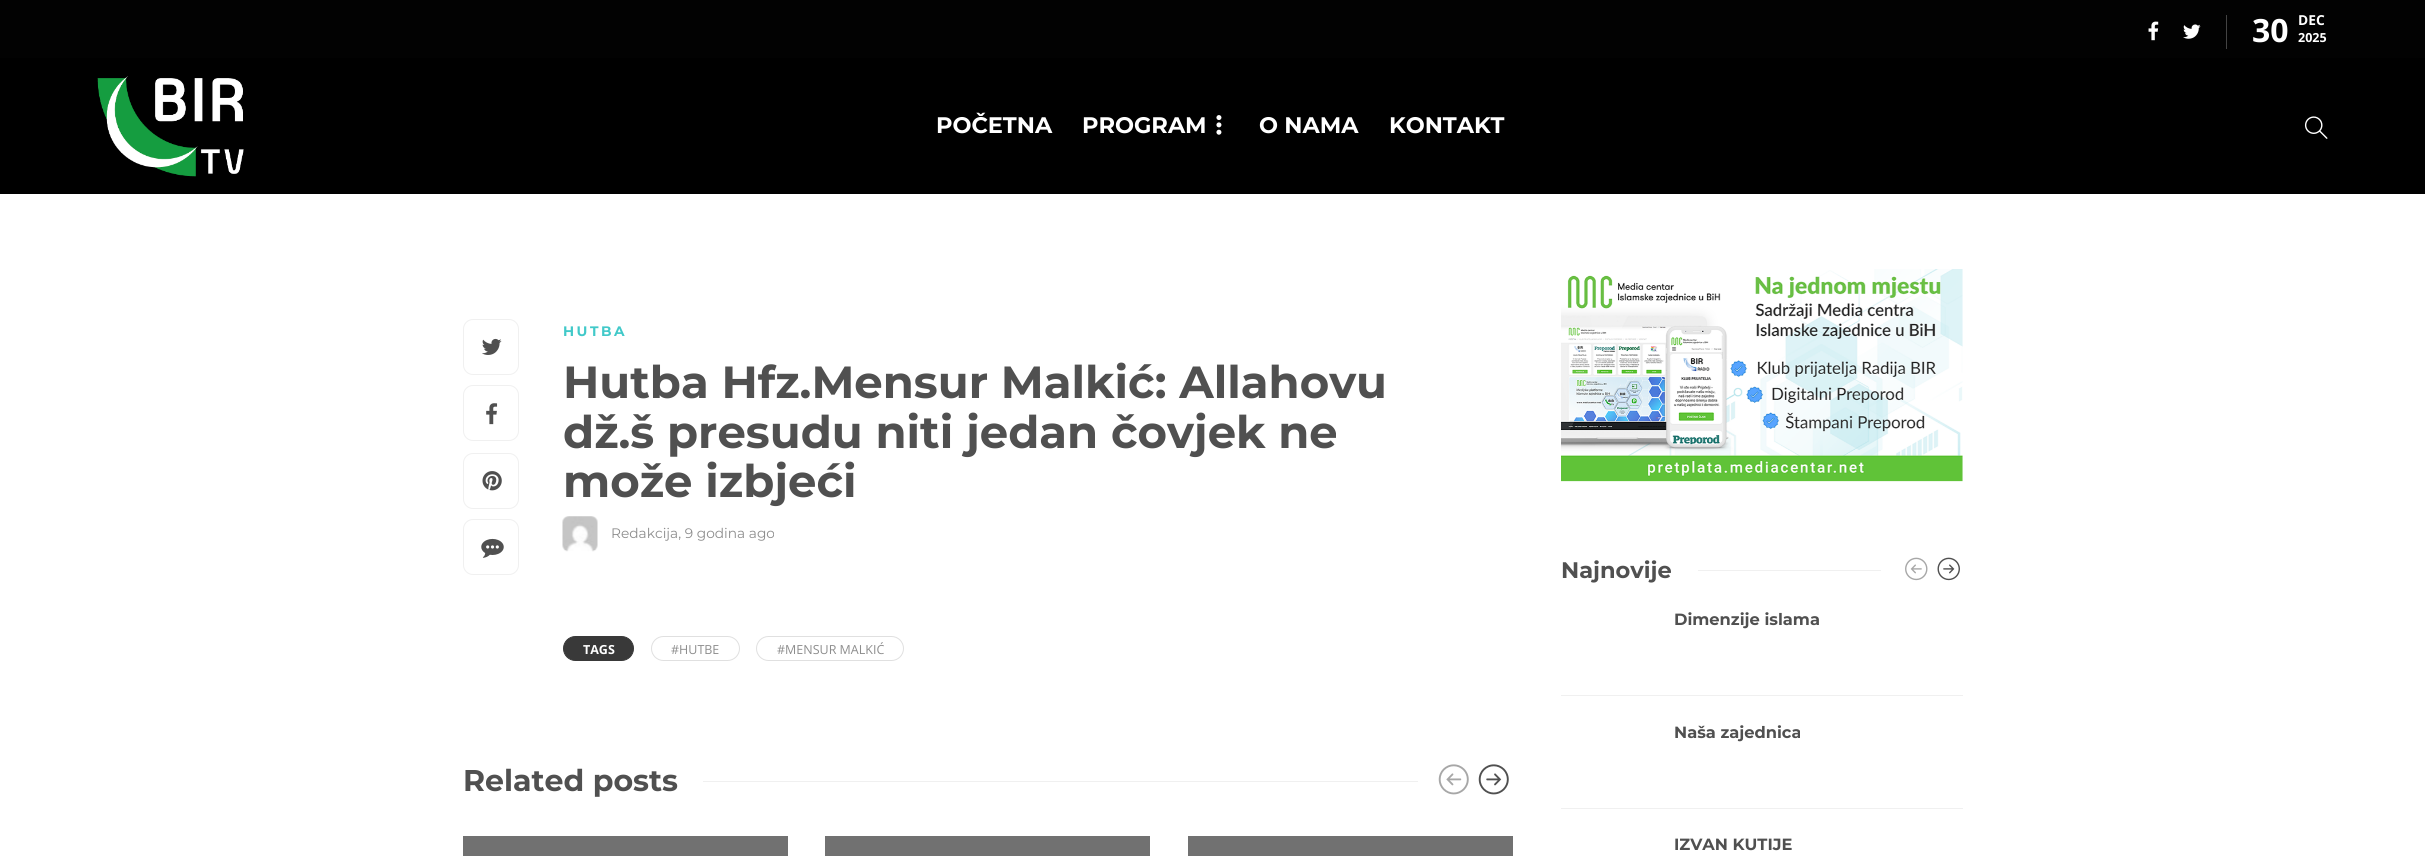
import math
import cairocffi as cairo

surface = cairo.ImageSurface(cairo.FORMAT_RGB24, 2425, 856)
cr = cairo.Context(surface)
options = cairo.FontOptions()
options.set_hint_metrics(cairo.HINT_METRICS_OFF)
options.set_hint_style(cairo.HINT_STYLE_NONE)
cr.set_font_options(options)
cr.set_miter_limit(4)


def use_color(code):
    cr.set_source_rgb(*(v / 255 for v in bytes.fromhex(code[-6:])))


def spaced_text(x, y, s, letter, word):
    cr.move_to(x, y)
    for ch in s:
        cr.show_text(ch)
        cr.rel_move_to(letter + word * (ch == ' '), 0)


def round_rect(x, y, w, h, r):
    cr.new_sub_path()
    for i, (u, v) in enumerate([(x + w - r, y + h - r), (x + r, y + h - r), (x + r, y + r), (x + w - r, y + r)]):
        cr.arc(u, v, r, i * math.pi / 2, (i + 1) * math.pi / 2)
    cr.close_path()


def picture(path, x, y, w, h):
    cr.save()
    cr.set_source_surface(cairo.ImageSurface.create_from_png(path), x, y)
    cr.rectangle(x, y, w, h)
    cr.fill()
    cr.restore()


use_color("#ffffff")
cr.paint()
use_color("#020202")
cr.rectangle(0, 0, 2425, 58)
cr.fill()
use_color("#434343")
cr.rectangle(2226, 15, 1, 34)
cr.fill()
picture("img1.png", 2148, 21, 11, 20)
picture("img2.png", 2183, 24, 18, 15)
cr.select_font_face("Open Sans", cairo.FONT_SLANT_NORMAL, cairo.FONT_WEIGHT_BOLD)
cr.set_font_size(32)
use_color("#ffffff")
cr.move_to(2252, 42)
cr.show_text("30")
cr.set_font_size(13.75)
cr.move_to(2298, 25)
cr.show_text("DEC")
cr.set_font_size(12.5)
cr.move_to(2298, 42)
cr.show_text("2025")
use_color("#000000")
cr.rectangle(0, 58, 2425, 136)
cr.fill()
picture("img3.png", 97, 76, 147, 101)
cr.select_font_face("Montserrat", cairo.FONT_SLANT_NORMAL, cairo.FONT_WEIGHT_BOLD)
cr.set_font_size(22.5)
use_color("#ffffff")
cr.move_to(936, 133)
cr.show_text("POČETNA")
cr.move_to(1082, 133)
cr.show_text("PROGRAM")
picture("img4.png", 1216, 115, 6, 20)
cr.move_to(1259, 133)
cr.show_text("O NAMA")
cr.move_to(1389, 133)
cr.show_text("KONTAKT")
picture("img5.png", 2304, 116, 24, 23)
round_rect(463.5, 319.5, 55, 55, 9.5)
use_color("#f0f0f0")
cr.set_line_width(1)
cr.stroke()
picture("img6.png", 482, 338, 20, 17)
round_rect(463.5, 385.5, 55, 55, 9.5)
cr.stroke()
picture("img7.png", 486, 403, 12, 22)
round_rect(463.5, 453.5, 55, 55, 9.5)
cr.stroke()
picture("img8.png", 482, 471, 20, 20)
round_rect(463.5, 519.5, 55, 55, 9.5)
cr.stroke()
picture("img9.png", 481, 538, 23, 20)
cr.set_font_size(13.75)
use_color("#41c9c9")
spaced_text(563, 336, "HUTBA", 2.5, 0)
cr.set_font_size(45)
use_color("#505050")
cr.move_to(563, 398)
cr.show_text("Hutba Hfz.Mensur Malkić: Allahovu")
cr.move_to(563, 448)
cr.show_text("dž.š presudu niti jedan čovjek ne")
cr.move_to(563, 497)
cr.show_text("može izbjeći")
picture("img10.png", 562, 516, 36, 36)
cr.select_font_face("Montserrat")
cr.set_font_size(13.75)
use_color("#8d8d8d")
cr.move_to(611, 538)
cr.show_text("Redakcija, 9 godina ago")
use_color("#393939")
round_rect(563.5, 636.5, 70, 24, 12)
cr.fill_preserve()
cr.stroke()
cr.select_font_face("Open Sans", cairo.FONT_SLANT_NORMAL, cairo.FONT_WEIGHT_BOLD)
cr.set_font_size(12.5)
use_color("#ffffff")
cr.move_to(583, 654)
cr.show_text("TAGS")
round_rect(651.5, 636.5, 88, 24, 12)
use_color("#e0e0e0")
cr.stroke()
cr.select_font_face("Open Sans")
use_color("#8d8d8d")
cr.move_to(671, 654)
cr.show_text("#HUTBE")
round_rect(756.5, 636.5, 147, 24, 12)
use_color("#e0e0e0")
cr.stroke()
use_color("#8d8d8d")
cr.move_to(777, 654)
cr.show_text("#MENSUR MALKIĆ")
cr.select_font_face("Montserrat", cairo.FONT_SLANT_NORMAL, cairo.FONT_WEIGHT_BOLD)
cr.set_font_size(30)
use_color("#505050")
cr.move_to(463, 791)
cr.show_text("Related posts")
use_color("#f0f0f0")
cr.rectangle(703, 781, 715, 1)
cr.fill()
picture("img11.png", 1438, 764, 31, 31)
picture("img12.png", 1478, 764, 31, 31)
use_color("#717171")
cr.rectangle(463, 836, 325, 20)
cr.fill()
cr.rectangle(825, 836, 325, 20)
cr.fill()
cr.rectangle(1188, 836, 325, 20)
cr.fill()
picture("img13.png", 1561, 269, 402, 213)
cr.set_font_size(22.5)
use_color("#505050")
cr.move_to(1561, 578)
cr.show_text("Najnovije")
use_color("#f0f0f0")
cr.rectangle(1698, 570, 183, 1)
cr.fill()
picture("img14.png", 1905, 557, 23, 24)
picture("img15.png", 1937, 557, 23, 24)
cr.rectangle(1561, 695, 402, 1)
cr.fill()
cr.set_font_size(16.25)
use_color("#505050")
cr.move_to(1674, 625)
cr.show_text("Dimenzije islama")
use_color("#f0f0f0")
cr.rectangle(1561, 808, 402, 1)
cr.fill()
use_color("#505050")
cr.move_to(1674, 738)
cr.show_text("Naša zajednica")
cr.move_to(1674, 850)
cr.show_text("IZVAN KUTIJE")
surface.write_to_png("result.png")
